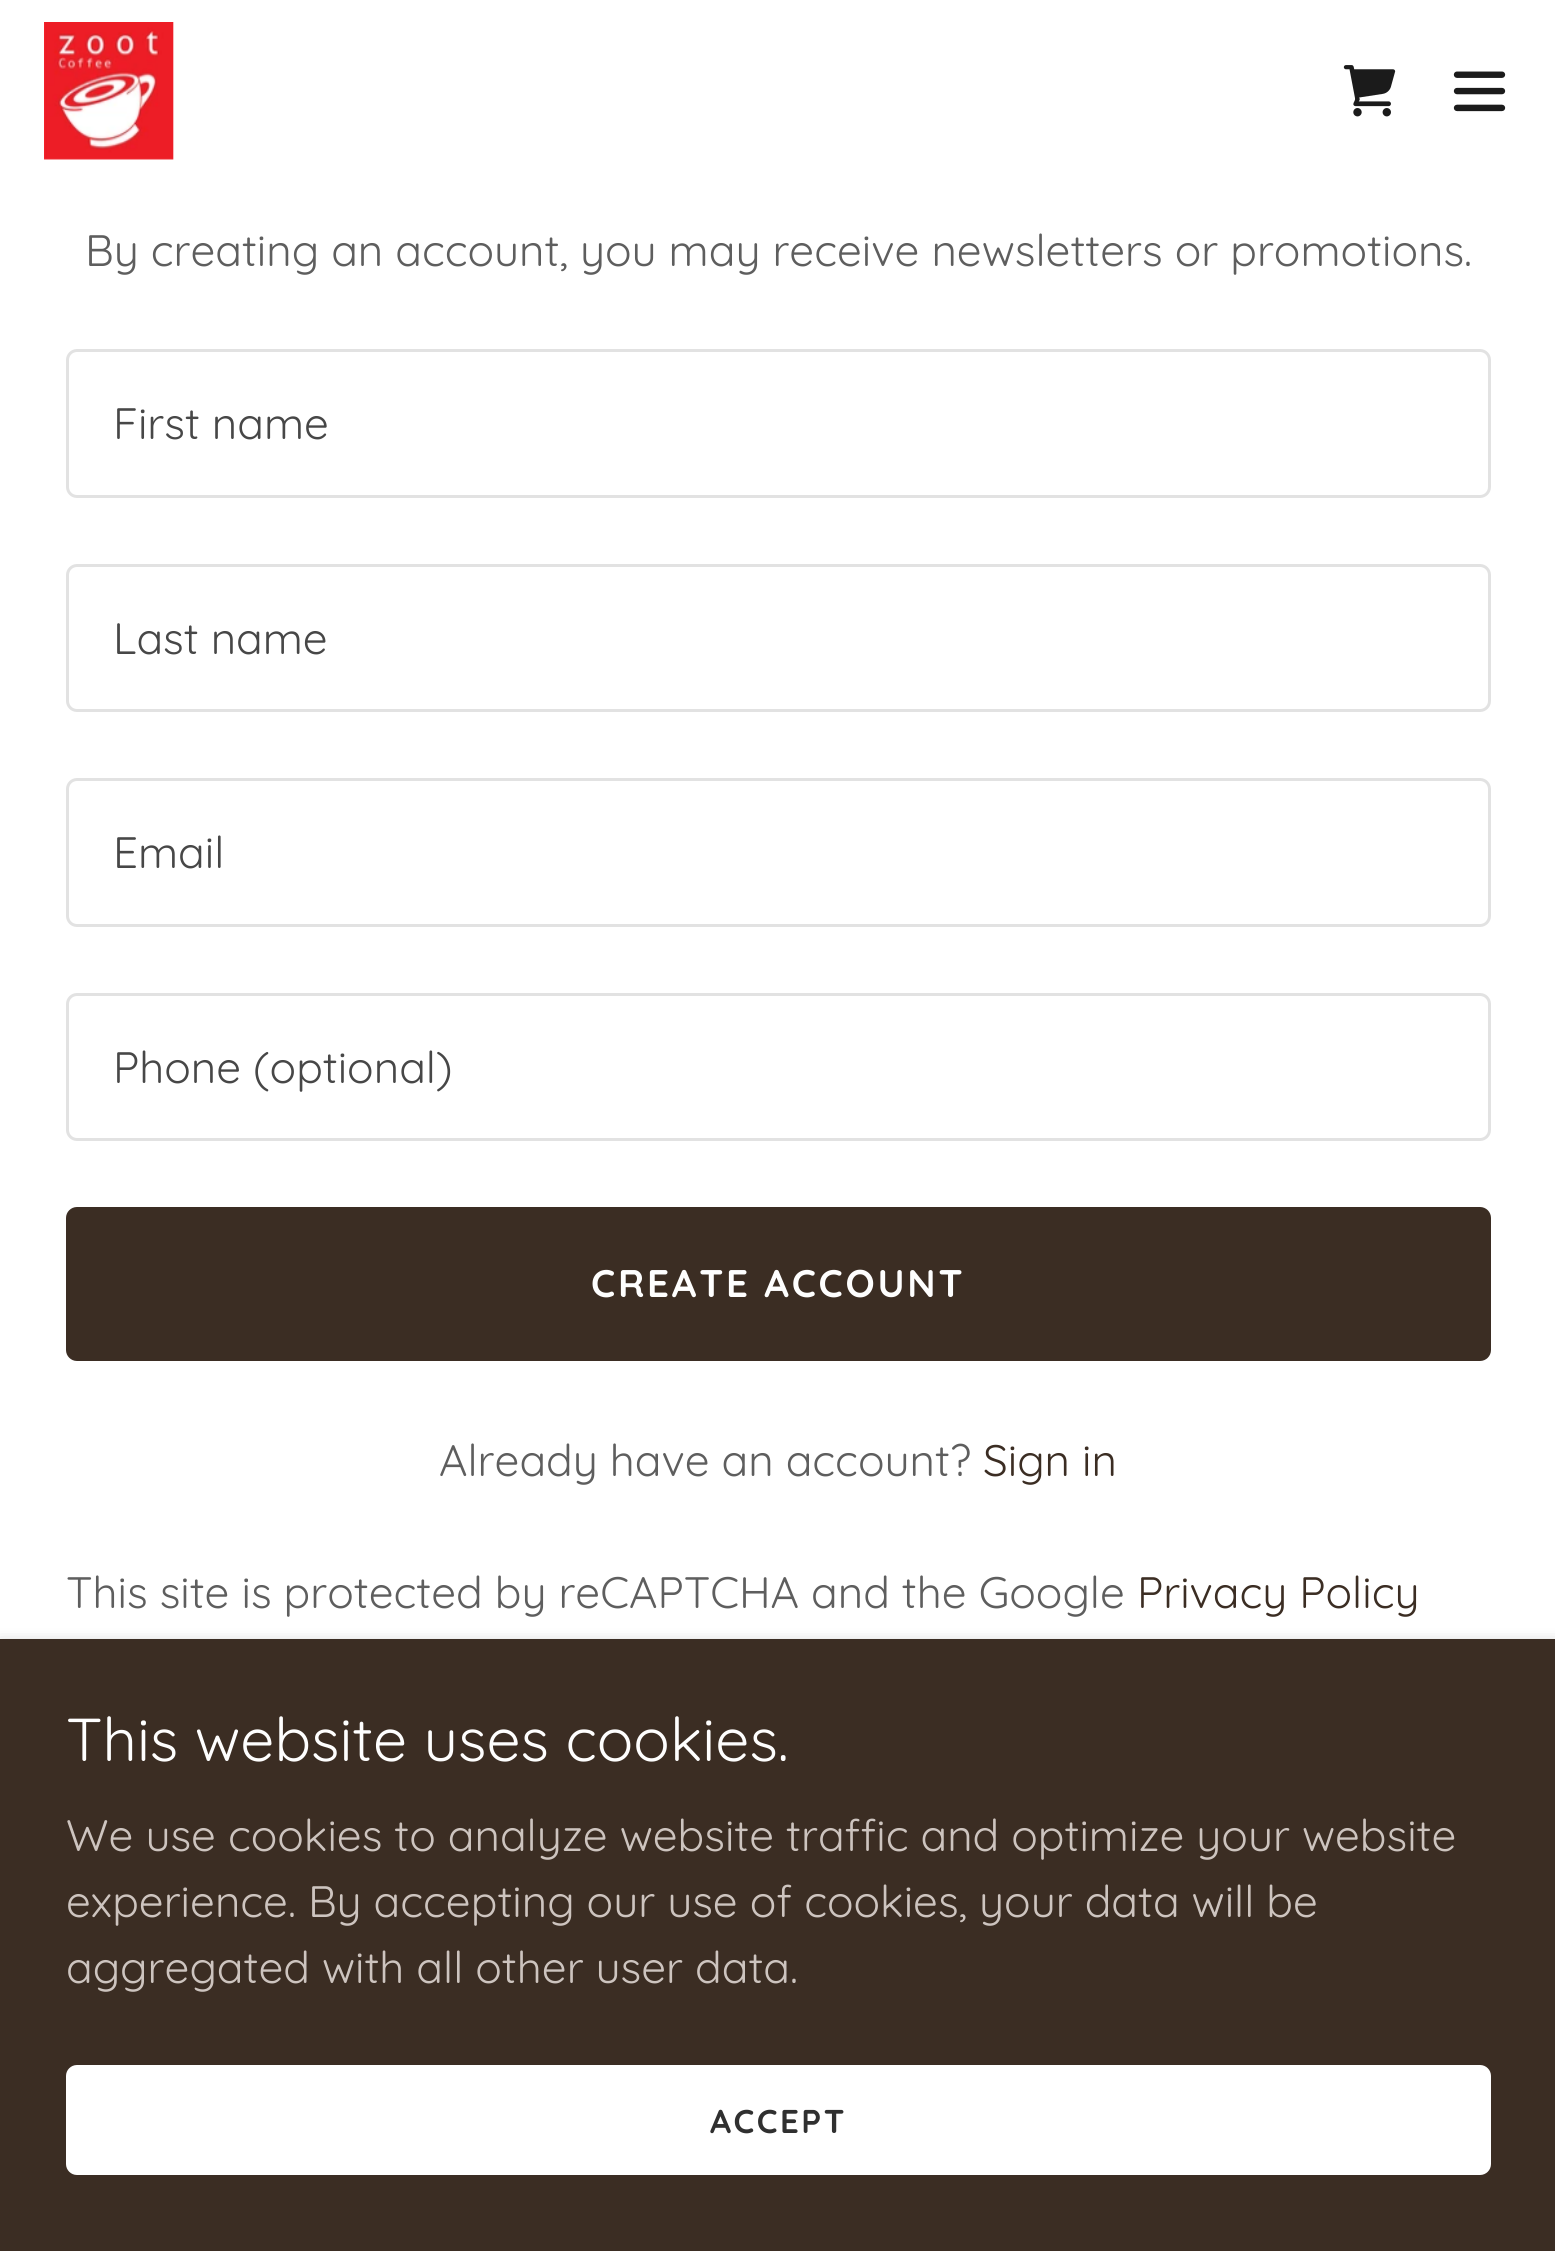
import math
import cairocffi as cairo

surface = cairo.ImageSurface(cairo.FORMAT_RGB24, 1555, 2251)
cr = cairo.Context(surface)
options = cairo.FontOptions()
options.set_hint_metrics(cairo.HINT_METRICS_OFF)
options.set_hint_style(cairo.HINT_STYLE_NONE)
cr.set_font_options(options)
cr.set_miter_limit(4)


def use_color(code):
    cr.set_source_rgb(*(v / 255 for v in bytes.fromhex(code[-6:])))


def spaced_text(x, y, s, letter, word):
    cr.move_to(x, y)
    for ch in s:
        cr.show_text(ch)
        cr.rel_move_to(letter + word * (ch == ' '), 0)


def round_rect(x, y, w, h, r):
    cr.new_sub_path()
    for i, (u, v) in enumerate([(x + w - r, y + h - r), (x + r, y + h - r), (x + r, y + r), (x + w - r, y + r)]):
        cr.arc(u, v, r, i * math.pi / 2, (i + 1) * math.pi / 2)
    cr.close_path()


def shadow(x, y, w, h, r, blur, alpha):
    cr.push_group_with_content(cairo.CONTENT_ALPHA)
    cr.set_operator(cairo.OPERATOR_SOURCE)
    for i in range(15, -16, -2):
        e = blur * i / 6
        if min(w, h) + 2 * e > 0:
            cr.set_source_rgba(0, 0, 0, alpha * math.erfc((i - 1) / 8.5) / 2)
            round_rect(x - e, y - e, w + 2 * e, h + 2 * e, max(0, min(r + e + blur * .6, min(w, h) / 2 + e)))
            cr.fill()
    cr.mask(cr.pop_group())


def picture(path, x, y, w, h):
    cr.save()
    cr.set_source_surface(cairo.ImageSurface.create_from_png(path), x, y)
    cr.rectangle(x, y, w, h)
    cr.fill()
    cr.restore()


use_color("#ffffff")
cr.paint()
picture("img1.png", 44, 22, 130, 138)
picture("img2.png", 1343, 65, 53, 52)
picture("img3.png", 1453, 71, 53, 41)
cr.select_font_face("Quicksand")
cr.set_font_size(44)
use_color("#5e5e5e")
cr.move_to(85, 266)
cr.show_text("By creating an account, you may receive newsletters or promotions.")
round_rect(67.5, 350.5, 1422, 146, 9.5)
use_color("#e2e2e2")
cr.set_line_width(3)
cr.stroke()
use_color("#474747")
cr.move_to(113, 439)
cr.show_text("First name")
round_rect(67.5, 565.5, 1422, 145, 9.5)
use_color("#e2e2e2")
cr.stroke()
use_color("#474747")
cr.move_to(113, 654)
cr.show_text("Last name")
round_rect(67.5, 779.5, 1422, 146, 9.5)
use_color("#e2e2e2")
cr.stroke()
use_color("#474747")
cr.move_to(113, 868)
cr.show_text("Email")
round_rect(67.5, 994.5, 1422, 145, 9.5)
use_color("#e2e2e2")
cr.stroke()
use_color("#474747")
cr.move_to(113, 1083)
cr.show_text("Phone (optional)")
use_color("#3b2d23")
round_rect(66, 1207, 1425, 154, 11)
cr.fill()
cr.select_font_face("Quicksand", cairo.FONT_SLANT_NORMAL, cairo.FONT_WEIGHT_BOLD)
cr.set_font_size(38.5)
use_color("#fefefe")
spaced_text(591, 1297, "CREATE ACCOUNT", 2.75, 0)
cr.select_font_face("Quicksand")
cr.set_font_size(44)
use_color("#5e5e5e")
cr.move_to(439, 1476)
cr.show_text("Already have an account?")
use_color("#3b2d23")
cr.move_to(983, 1476)
cr.show_text("Sign in")
use_color("#5e5e5e")
cr.move_to(66, 1608)
cr.show_text("This site is protected by reCAPTCHA and the Google")
use_color("#3b2d23")
cr.move_to(1137, 1608)
cr.show_text("Privacy Policy")
use_color("#000000")
shadow(0, 1645, 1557, 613, 0, 8, 0.3)
use_color("#3b2d23")
cr.rectangle(0, 1639, 1555, 612)
cr.fill()
cr.set_font_size(60.5)
use_color("#fefefe")
cr.move_to(66, 1761)
cr.show_text("This website uses cookies.")
cr.set_font_size(44)
use_color("#cdc4bf")
cr.move_to(66, 1851)
cr.show_text("We use cookies to analyze website traffic and optimize your website")
cr.move_to(66, 1917)
cr.show_text("experience. By accepting our use of cookies, your data will be")
cr.move_to(66, 1983)
cr.show_text("aggregated with all other user data.")
use_color("#ffffff")
round_rect(66, 2065, 1425, 110, 11)
cr.fill()
cr.select_font_face("Quicksand", cairo.FONT_SLANT_NORMAL, cairo.FONT_WEIGHT_BOLD)
cr.set_font_size(33)
use_color("#303030")
spaced_text(710, 2133, "ACCEPT", 2.5, 0)
surface.write_to_png("result.png")
